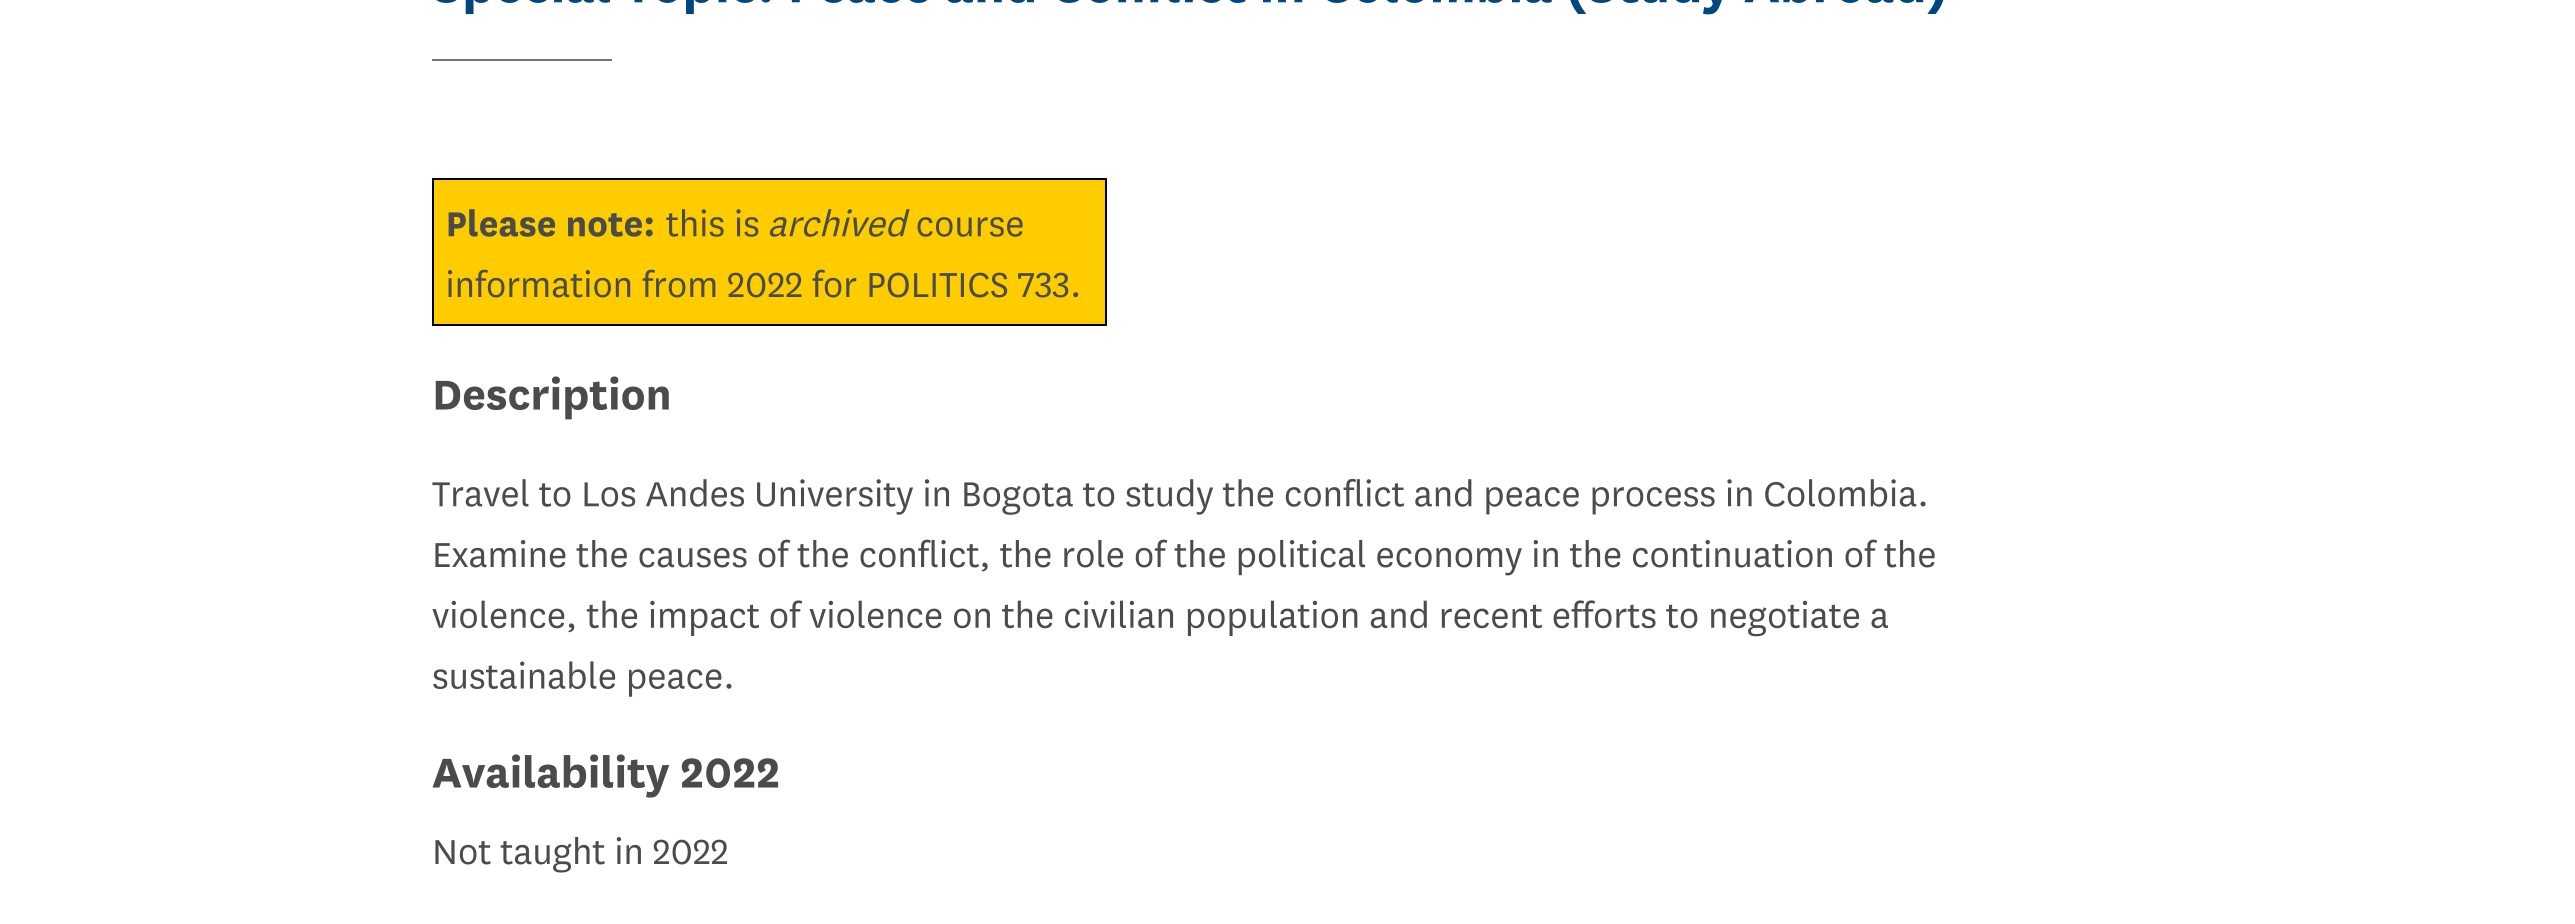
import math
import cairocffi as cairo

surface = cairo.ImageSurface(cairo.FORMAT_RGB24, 2575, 924)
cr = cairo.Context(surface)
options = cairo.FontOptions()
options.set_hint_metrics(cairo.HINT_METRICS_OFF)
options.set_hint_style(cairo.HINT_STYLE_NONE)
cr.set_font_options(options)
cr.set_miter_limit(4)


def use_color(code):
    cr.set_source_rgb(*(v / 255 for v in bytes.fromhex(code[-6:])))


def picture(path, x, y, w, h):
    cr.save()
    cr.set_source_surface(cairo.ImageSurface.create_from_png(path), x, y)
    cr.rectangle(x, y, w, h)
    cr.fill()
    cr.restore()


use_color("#ffffff")
cr.paint()
picture("img1.png", 436, 0, 1508, 15)
use_color("#747778")
cr.rectangle(432, 59, 180, 2)
cr.fill()
use_color("#ffcc00")
cr.rectangle(433, 179, 673, 146)
cr.fill_preserve()
use_color("#000000")
cr.stroke()
picture("img2.png", 448, 209, 205, 28)
picture("img3.png", 666, 209, 93, 28)
picture("img4.png", 769, 209, 141, 28)
picture("img5.png", 917, 217, 106, 20)
picture("img6.png", 447, 269, 632, 29)
picture("img7.png", 435, 376, 234, 44)
picture("img8.png", 432, 478, 1494, 37)
picture("img9.png", 435, 539, 1500, 37)
picture("img10.png", 432, 600, 1456, 37)
picture("img11.png", 433, 661, 299, 36)
picture("img12.png", 432, 754, 347, 44)
picture("img13.png", 435, 836, 293, 37)
surface.write_to_png("result.png")
